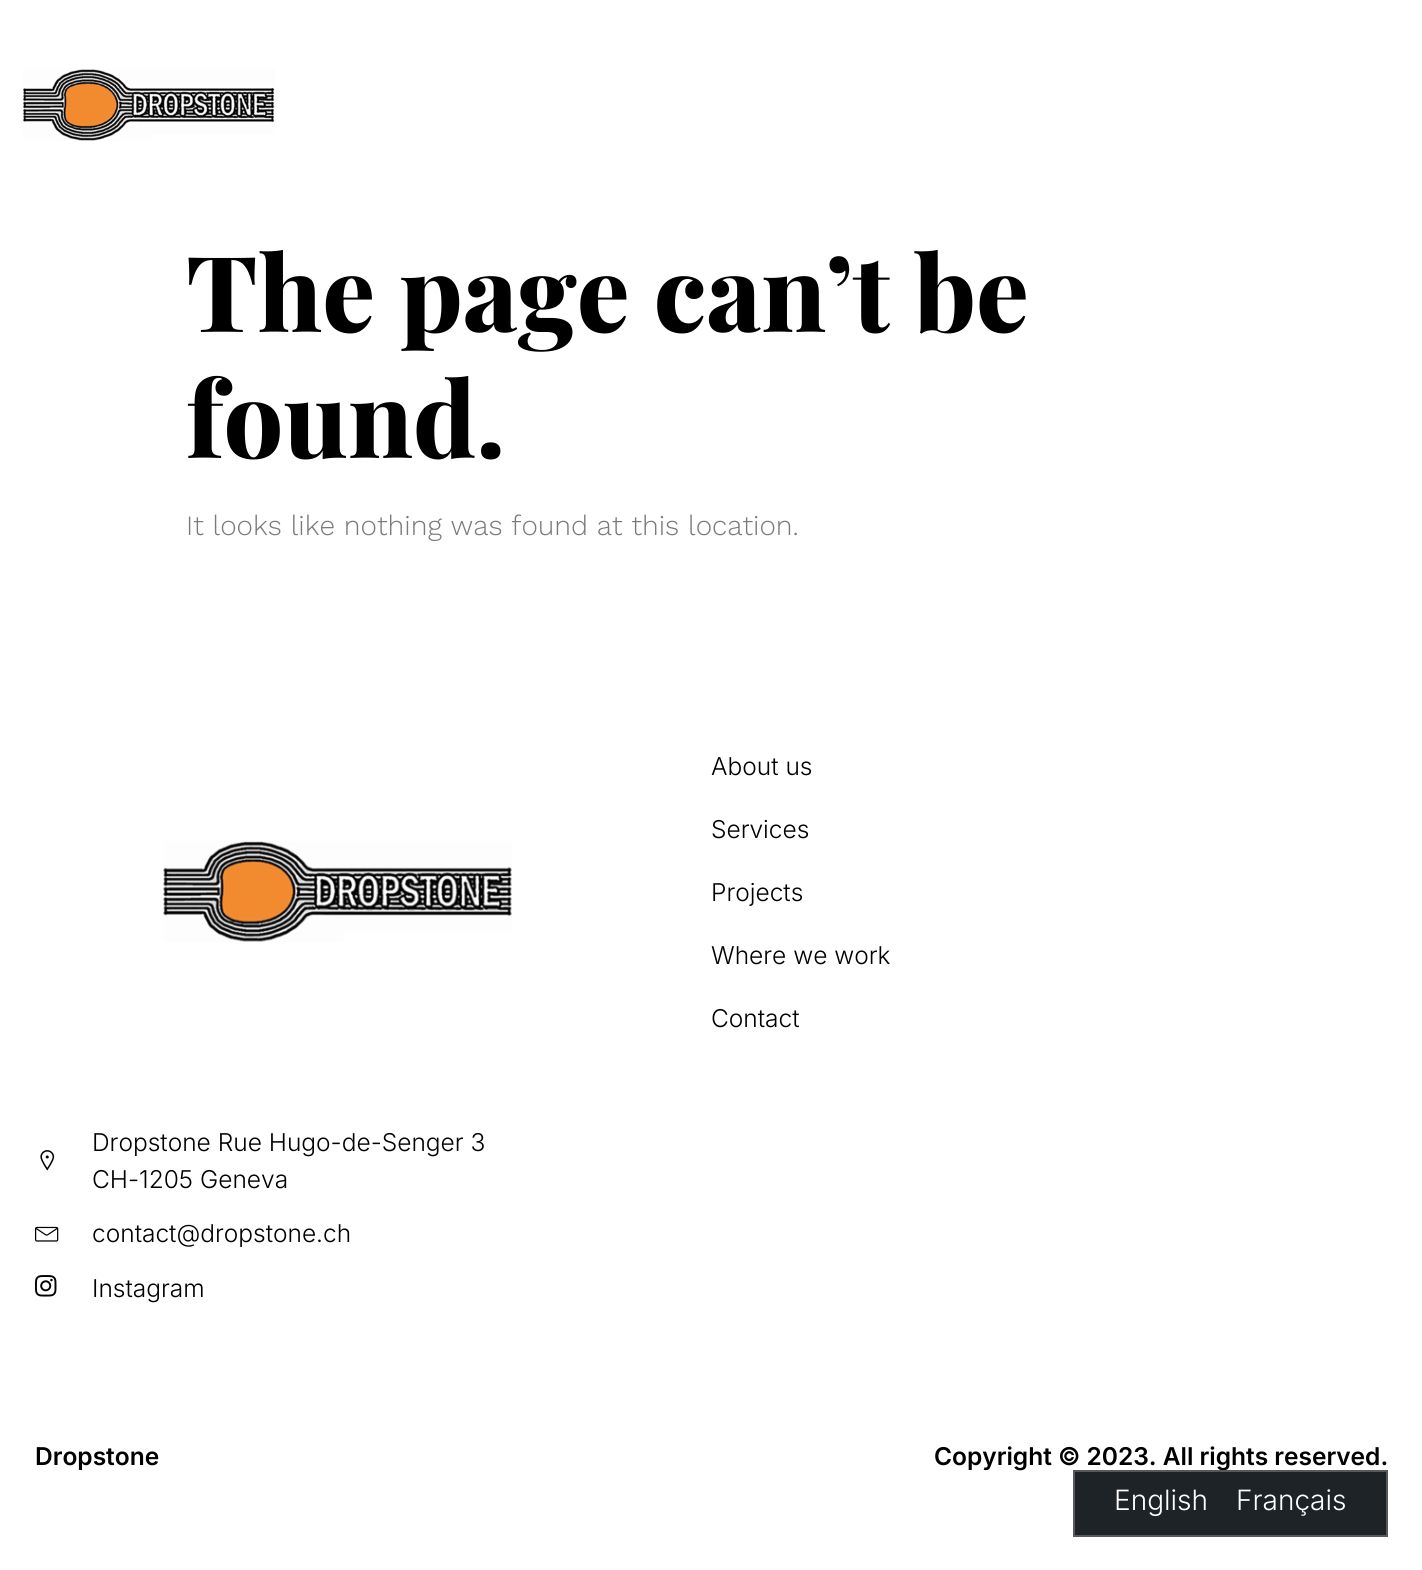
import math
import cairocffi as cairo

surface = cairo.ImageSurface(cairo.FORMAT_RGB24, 1422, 1570)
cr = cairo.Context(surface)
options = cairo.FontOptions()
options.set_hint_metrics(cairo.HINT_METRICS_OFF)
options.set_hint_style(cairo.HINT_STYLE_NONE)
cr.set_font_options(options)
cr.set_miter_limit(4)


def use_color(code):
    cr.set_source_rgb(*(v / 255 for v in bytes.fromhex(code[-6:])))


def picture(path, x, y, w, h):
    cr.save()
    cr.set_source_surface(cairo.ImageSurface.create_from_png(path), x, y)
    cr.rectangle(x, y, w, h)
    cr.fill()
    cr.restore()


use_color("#ffffff")
cr.paint()
picture("img1.png", 23, 69, 252, 72)
cr.select_font_face("Playfair Display ExtraBold")
cr.set_font_size(105)
use_color("#000000")
cr.move_to(186, 332)
cr.show_text("The page can’t be")
cr.move_to(186, 458)
cr.show_text("found.")
cr.select_font_face("Work Sans Light")
cr.set_font_size(28)
use_color("#7a7a7a")
cr.move_to(186, 535)
cr.show_text("It looks like nothing was found at this location.")
picture("img2.png", 163, 841, 349, 101)
cr.select_font_face("Inter Light")
cr.set_font_size(24.5)
use_color("#000000")
cr.move_to(711, 775)
cr.show_text("About us")
cr.move_to(711, 838)
cr.show_text("Services")
cr.move_to(711, 901)
cr.show_text("Projects")
cr.move_to(711, 964)
cr.show_text("Where we work")
cr.move_to(711, 1027)
cr.show_text("Contact")
picture("img3.png", 40, 1150, 15, 21)
cr.move_to(92, 1151)
cr.show_text("Dropstone Rue Hugo-de-Senger 3")
cr.move_to(92, 1188)
cr.show_text("CH-1205 Geneva")
picture("img4.png", 35, 1226, 24, 16)
cr.move_to(92, 1242)
cr.show_text("contact@dropstone.ch")
picture("img5.png", 35, 1275, 22, 22)
cr.move_to(92, 1297)
cr.show_text("Instagram")
cr.select_font_face("Inter SemiBold")
cr.move_to(35, 1465)
cr.show_text("Dropstone")
cr.move_to(934, 1465)
cr.show_text("Copyright © 2023. All rights reserved.")
use_color("#1d2327")
cr.rectangle(1074, 1471, 313, 65)
cr.fill_preserve()
use_color("#565a5d")
cr.stroke()
cr.select_font_face("Inter Light")
cr.set_font_size(28)
use_color("#ffffff")
cr.move_to(1114, 1510)
cr.show_text("English")
cr.move_to(1236, 1510)
cr.show_text("Français")
surface.write_to_png("result.png")
